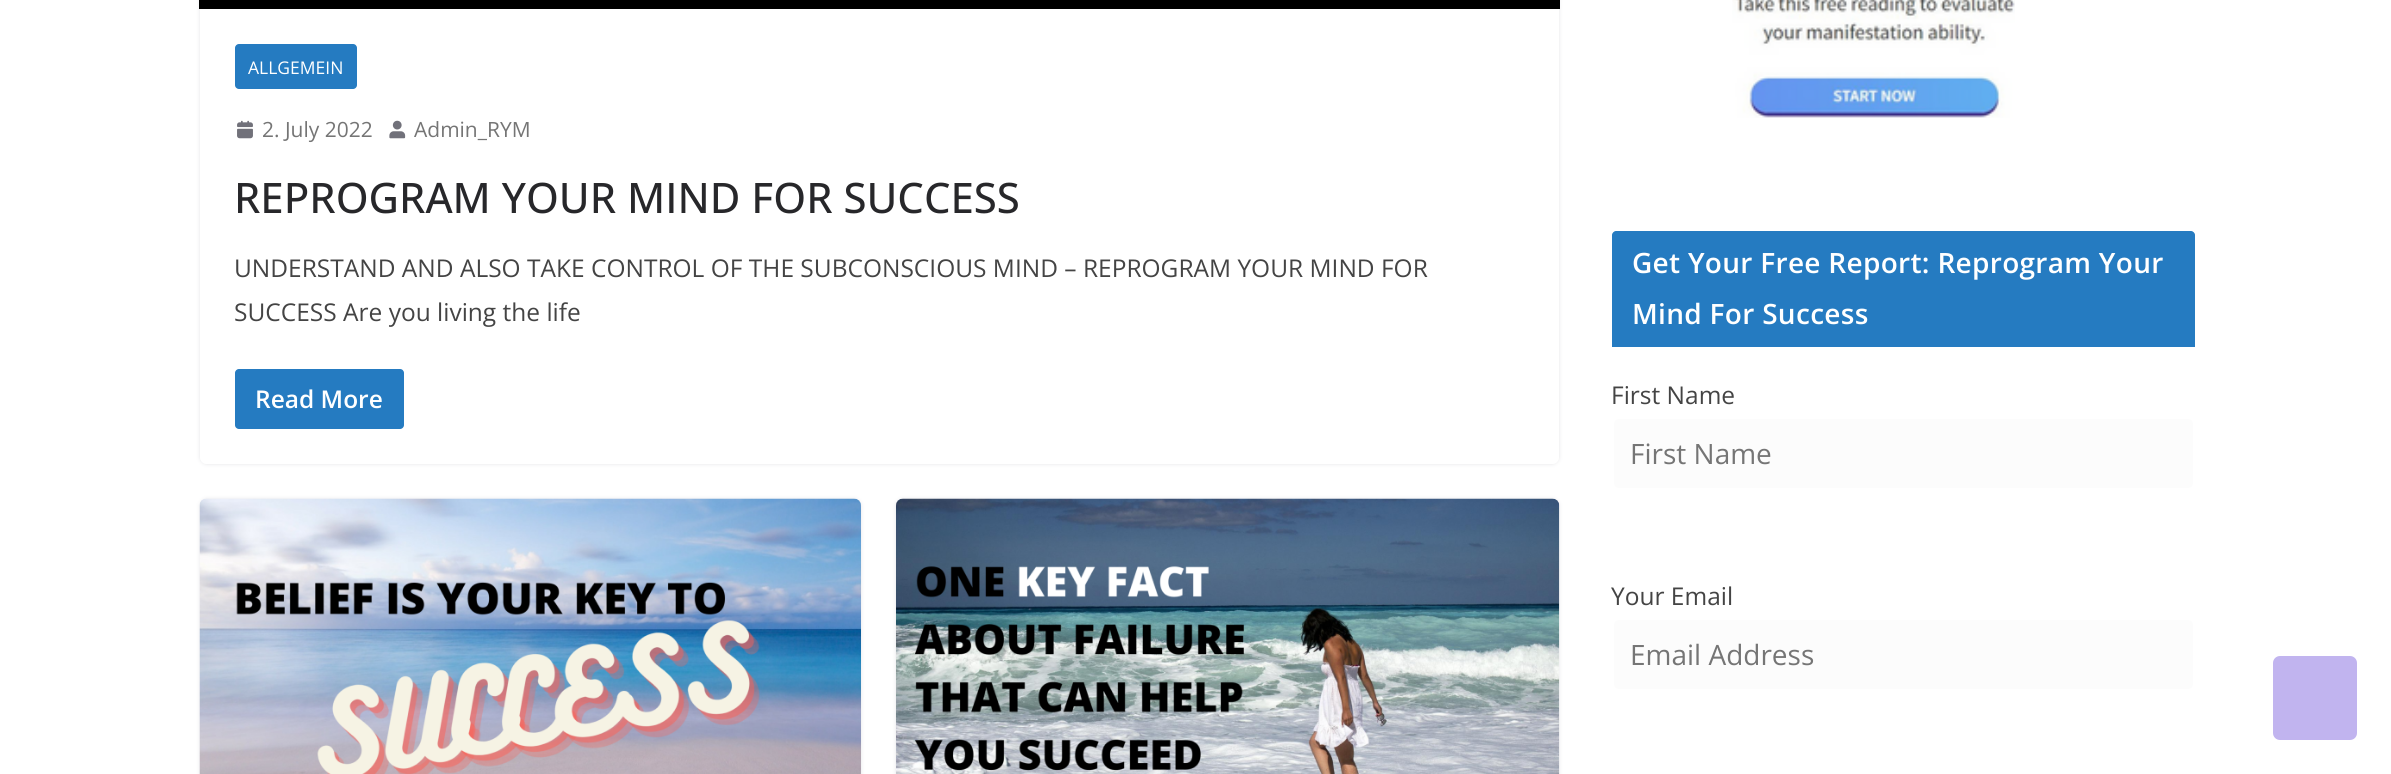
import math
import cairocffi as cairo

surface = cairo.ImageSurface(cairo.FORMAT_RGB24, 2391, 774)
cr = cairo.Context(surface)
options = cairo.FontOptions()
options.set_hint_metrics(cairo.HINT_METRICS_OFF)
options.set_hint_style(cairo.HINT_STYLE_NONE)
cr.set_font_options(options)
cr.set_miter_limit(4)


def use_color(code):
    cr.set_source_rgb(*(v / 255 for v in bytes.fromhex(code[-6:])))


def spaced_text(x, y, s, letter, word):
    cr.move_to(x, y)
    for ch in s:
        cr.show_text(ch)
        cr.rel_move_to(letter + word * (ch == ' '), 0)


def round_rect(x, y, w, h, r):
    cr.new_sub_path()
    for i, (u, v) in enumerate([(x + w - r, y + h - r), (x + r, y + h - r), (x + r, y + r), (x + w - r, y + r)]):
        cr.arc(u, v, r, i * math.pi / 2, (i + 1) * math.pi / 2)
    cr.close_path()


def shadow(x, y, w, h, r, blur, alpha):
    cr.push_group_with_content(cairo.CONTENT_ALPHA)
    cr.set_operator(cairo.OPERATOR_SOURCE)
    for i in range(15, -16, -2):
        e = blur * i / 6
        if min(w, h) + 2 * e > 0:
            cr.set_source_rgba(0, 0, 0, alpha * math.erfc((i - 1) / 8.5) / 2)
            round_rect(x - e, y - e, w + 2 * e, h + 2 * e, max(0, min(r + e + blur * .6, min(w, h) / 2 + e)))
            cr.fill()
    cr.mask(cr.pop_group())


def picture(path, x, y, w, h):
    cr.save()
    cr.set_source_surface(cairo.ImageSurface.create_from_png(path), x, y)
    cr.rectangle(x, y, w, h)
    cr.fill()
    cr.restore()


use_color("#ffffff")
cr.paint()
cr.save()
cr.set_fill_rule(cairo.FILL_RULE_EVEN_ODD)
cr.new_path()
cr.move_to(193, 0)
cr.line_to(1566, 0)
cr.line_to(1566, 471)
cr.line_to(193, 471)
cr.close_path()
cr.move_to(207, -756)
cr.line_to(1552, -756)
cr.curve_to(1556, -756, 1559, -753, 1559, -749)
cr.line_to(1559, 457)
cr.curve_to(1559, 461, 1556, 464, 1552, 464)
cr.line_to(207, 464)
cr.curve_to(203, 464, 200, 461, 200, 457)
cr.line_to(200, -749)
cr.curve_to(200, -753, 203, -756, 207, -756)
cr.close_path()
cr.clip()
use_color("#e4e4e7")
shadow(200, -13, 1359, 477, 7, 2, 1)
cr.restore()
use_color("#000000")
cr.rectangle(199, 0, 1361, 9)
cr.fill()
use_color("#257bc1")
round_rect(235, 44, 122, 45, 4)
cr.fill()
cr.select_font_face("Open Sans")
cr.set_font_size(17.5)
use_color("#ffffff")
cr.move_to(248, 74)
cr.show_text("ALLGEMEIN")
picture("img1.png", 237, 120, 16, 19)
cr.set_font_size(21)
use_color("#757575")
cr.move_to(262, 137)
cr.show_text("2. July 2022")
picture("img2.png", 389, 120, 17, 19)
cr.move_to(414, 137)
cr.show_text("Admin_RYM")
cr.select_font_face("Open Sans Medium")
cr.set_font_size(42)
use_color("#27272a")
cr.move_to(234, 213)
cr.show_text("REPROGRAM YOUR MIND FOR SUCCESS")
cr.select_font_face("Open Sans")
cr.set_font_size(24.5)
use_color("#444444")
cr.move_to(234, 277)
cr.show_text("UNDERSTAND AND ALSO TAKE CONTROL OF THE SUBCONSCIOUS MIND – REPROGRAM YOUR MIND FOR")
cr.move_to(234, 321)
cr.show_text("SUCCESS Are you living the life")
use_color("#257bc1")
round_rect(235, 369, 169, 60, 4)
cr.fill()
cr.select_font_face("Open Sans SemiBold")
use_color("#ffffff")
cr.move_to(255, 408)
cr.show_text("Read More")
use_color("#e4e4e7")
shadow(200, 499, 661, 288, 7, 2, 1)
picture("img3.png", 199, 498, 662, 276)
shadow(896, 499, 663, 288, 7, 2, 1)
picture("img4.png", 896, 498, 664, 276)
picture("img5.png", 1732, 0, 283, 118)
use_color("#257bc1")
cr.rectangle(1612, 343, 583, 4)
cr.fill()
cr.new_path()
cr.move_to(1616, 231)
cr.line_to(2191, 231)
cr.curve_to(2193, 231, 2195, 233, 2195, 235)
cr.line_to(2195, 343)
cr.line_to(1612, 343)
cr.line_to(1612, 235)
cr.curve_to(1612, 233, 1614, 231, 1616, 231)
cr.close_path()
cr.fill()
cr.set_font_size(28)
use_color("#ffffff")
spaced_text(1632, 273, "Get Your Free Report: Reprogram Your", 0.3, 0)
spaced_text(1632, 324, "Mind For Success", 0.3, 0)
cr.select_font_face("Open Sans")
cr.set_font_size(24.5)
use_color("#444444")
cr.move_to(1611, 404)
cr.show_text("First Name")
use_color("#fcfcfc")
round_rect(1613, 418, 581, 71, 6)
cr.fill_preserve()
use_color("#ffffff")
cr.stroke()
cr.set_font_size(28)
use_color("#757575")
cr.move_to(1630, 464)
cr.show_text("First Name")
cr.set_font_size(24.5)
use_color("#444444")
cr.move_to(1611, 605)
cr.show_text("Your Email")
use_color("#fcfcfc")
round_rect(1613, 619, 581, 71, 6)
cr.fill_preserve()
use_color("#ffffff")
cr.stroke()
cr.set_font_size(28)
use_color("#757575")
cr.move_to(1630, 665)
cr.show_text("Email Address")
use_color("#c1b4ef")
round_rect(2273, 656, 84, 84, 7)
cr.fill()
surface.write_to_png("result.png")
